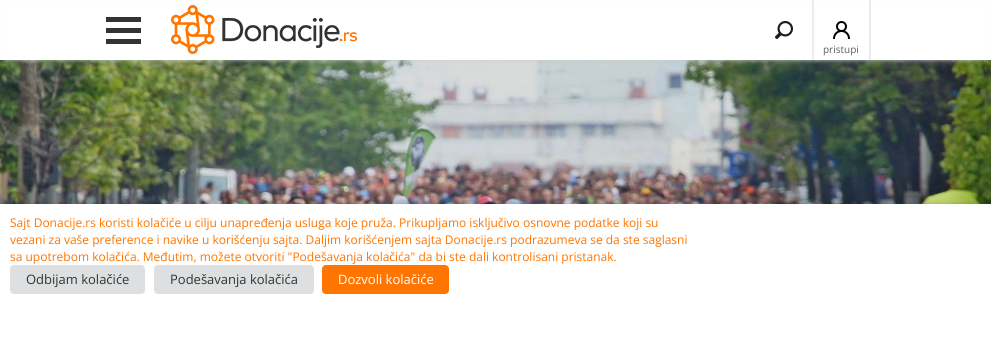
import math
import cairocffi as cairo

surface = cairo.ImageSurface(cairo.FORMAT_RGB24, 991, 344)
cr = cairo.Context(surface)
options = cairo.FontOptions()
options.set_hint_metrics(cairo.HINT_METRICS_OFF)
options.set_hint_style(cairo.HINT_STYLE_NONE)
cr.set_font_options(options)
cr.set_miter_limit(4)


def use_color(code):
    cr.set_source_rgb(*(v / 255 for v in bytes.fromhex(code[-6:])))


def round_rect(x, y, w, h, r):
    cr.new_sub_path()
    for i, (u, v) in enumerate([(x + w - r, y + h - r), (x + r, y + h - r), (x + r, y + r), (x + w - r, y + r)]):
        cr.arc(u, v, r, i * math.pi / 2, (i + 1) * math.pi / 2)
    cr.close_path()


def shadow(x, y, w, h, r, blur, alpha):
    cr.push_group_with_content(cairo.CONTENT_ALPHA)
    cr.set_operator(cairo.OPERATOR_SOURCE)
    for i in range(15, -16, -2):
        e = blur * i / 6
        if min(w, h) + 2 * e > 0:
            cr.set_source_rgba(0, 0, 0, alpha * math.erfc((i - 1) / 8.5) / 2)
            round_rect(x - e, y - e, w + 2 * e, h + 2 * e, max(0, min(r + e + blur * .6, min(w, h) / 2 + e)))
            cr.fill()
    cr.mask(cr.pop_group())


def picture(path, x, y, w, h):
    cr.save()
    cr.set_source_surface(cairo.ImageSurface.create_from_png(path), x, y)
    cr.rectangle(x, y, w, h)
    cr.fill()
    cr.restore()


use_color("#ffffff")
cr.paint()
picture("img4.png", 0, 60, 991, 144)
use_color("#cdcdcd")
shadow(5, 10, 981, 50, 0, 2.5, 1)
use_color("#ffffff")
cr.rectangle(1, 6, 989, 54)
cr.fill()
use_color("#333333")
cr.rectangle(106, 17, 35, 5)
cr.fill()
cr.rectangle(106, 28, 35, 5)
cr.fill()
cr.rectangle(106, 39, 35, 5)
cr.fill()
picture("img1.png", 171, 5, 186, 49)
picture("img2.png", 775, 21, 18, 18)
use_color("#ececec")
cr.rectangle(812, 0, 2, 60)
cr.fill()
picture("img3.png", 833, 21, 17, 18)
cr.rectangle(869, 0, 2, 60)
cr.fill()
cr.select_font_face("Open Sans")
cr.set_font_size(10)
use_color("#5f5f5f")
cr.move_to(823, 53)
cr.show_text("pristupi")
use_color("#000000")
shadow(0, 209, 991, 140, 0, 5, 0.5)
use_color("#ffffff")
cr.rectangle(0, 204, 991, 140)
cr.fill()
cr.set_font_size(12)
use_color("#ff7500")
cr.move_to(10, 227)
cr.show_text("Sajt Donacije.rs koristi kolačiće u cilju unapređenja usluga koje pruža. Prikupljamo isključivo osnovne podatke koji su")
cr.move_to(10, 244)
cr.show_text("vezani za vaše preference i navike u korišćenju sajta. Daljim korišćenjem sajta Donacije.rs podrazumeva se da ste saglasni")
cr.move_to(10, 261)
cr.show_text("sa upotrebom kolačića. Međutim, možete otvoriti \"Podešavanja kolačića\" da bi ste dali kontrolisani pristanak.")
use_color("#dedfe0")
round_rect(10, 265, 135, 29, 4)
cr.fill()
cr.set_font_size(13)
use_color("#333333")
cr.move_to(26, 284)
cr.show_text("Odbijam kolačiće")
use_color("#dedfe0")
round_rect(154, 265, 160, 29, 4)
cr.fill()
use_color("#333333")
cr.move_to(170, 284)
cr.show_text("Podešavanja kolačića")
use_color("#ff7500")
round_rect(322, 265, 127, 29, 4)
cr.fill()
use_color("#ffffff")
cr.move_to(338, 284)
cr.show_text("Dozvoli kolačiće")
surface.write_to_png("result.png")
